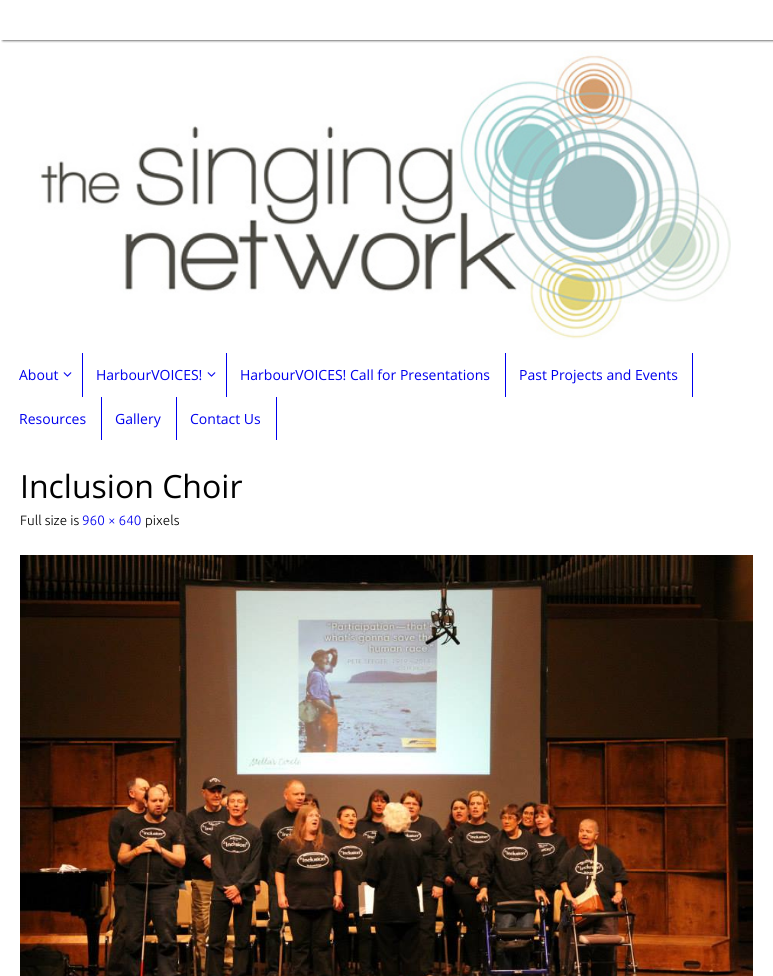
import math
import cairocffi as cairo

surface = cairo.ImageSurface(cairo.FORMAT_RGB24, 773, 976)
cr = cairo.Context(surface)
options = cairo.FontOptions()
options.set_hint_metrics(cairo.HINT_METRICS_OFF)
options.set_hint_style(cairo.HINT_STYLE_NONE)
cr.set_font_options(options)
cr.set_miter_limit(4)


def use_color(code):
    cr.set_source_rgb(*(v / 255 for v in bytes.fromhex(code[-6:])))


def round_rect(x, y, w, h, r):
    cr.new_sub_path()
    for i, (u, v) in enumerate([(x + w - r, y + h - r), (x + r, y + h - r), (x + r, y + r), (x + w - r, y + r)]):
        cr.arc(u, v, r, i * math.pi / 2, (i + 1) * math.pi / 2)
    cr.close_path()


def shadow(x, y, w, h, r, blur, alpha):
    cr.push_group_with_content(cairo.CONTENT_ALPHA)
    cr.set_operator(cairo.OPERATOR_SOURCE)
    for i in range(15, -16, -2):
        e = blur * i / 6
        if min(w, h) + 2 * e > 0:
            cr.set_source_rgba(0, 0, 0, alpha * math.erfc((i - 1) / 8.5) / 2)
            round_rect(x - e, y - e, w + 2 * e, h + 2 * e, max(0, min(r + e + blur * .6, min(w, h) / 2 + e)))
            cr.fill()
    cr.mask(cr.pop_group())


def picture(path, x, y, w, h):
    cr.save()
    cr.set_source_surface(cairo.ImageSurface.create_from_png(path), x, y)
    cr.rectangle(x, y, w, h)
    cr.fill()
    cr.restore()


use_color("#ffffff")
cr.paint()
cr.save()
cr.rectangle(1, 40, 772, 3)
cr.clip()
use_color("#000000")
shadow(3, 0, 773, 40, 0, 1.5, 1)
cr.restore()
picture("img1.png", 39, 50, 692, 290)
use_color("#0000ee")
cr.rectangle(82, 353, 1, 44)
cr.fill()
cr.select_font_face("Open Sans")
cr.set_font_size(14)
cr.move_to(19, 380)
cr.show_text("About")
picture("img2.png", 63, 372, 9, 5)
cr.rectangle(226, 353, 1, 44)
cr.fill()
cr.move_to(96, 380)
cr.show_text("HarbourVOICES!")
picture("img2.png", 207, 372, 9, 5)
cr.rectangle(505, 353, 1, 44)
cr.fill()
cr.move_to(240, 380)
cr.show_text("HarbourVOICES! Call for Presentations")
cr.rectangle(692, 353, 1, 44)
cr.fill()
cr.move_to(519, 380)
cr.show_text("Past Projects and Events")
cr.rectangle(101, 397, 1, 43)
cr.fill()
cr.move_to(19, 424)
cr.show_text("Resources")
cr.rectangle(176, 397, 1, 43)
cr.fill()
cr.move_to(115, 424)
cr.show_text("Gallery")
cr.rectangle(276, 397, 1, 43)
cr.fill()
cr.move_to(190, 424)
cr.show_text("Contact Us")
cr.set_font_size(32)
use_color("#000000")
cr.move_to(20, 498)
cr.show_text("Inclusion Choir")
cr.select_font_face("Ubuntu Light")
cr.set_font_size(13.5)
cr.move_to(20, 525)
cr.show_text("Full size is")
use_color("#0000ee")
cr.move_to(82, 525)
cr.show_text("960 × 640")
use_color("#000000")
cr.move_to(145, 525)
cr.show_text("pixels")
picture("img3.png", 20, 555, 733, 421)
surface.write_to_png("result.png")
